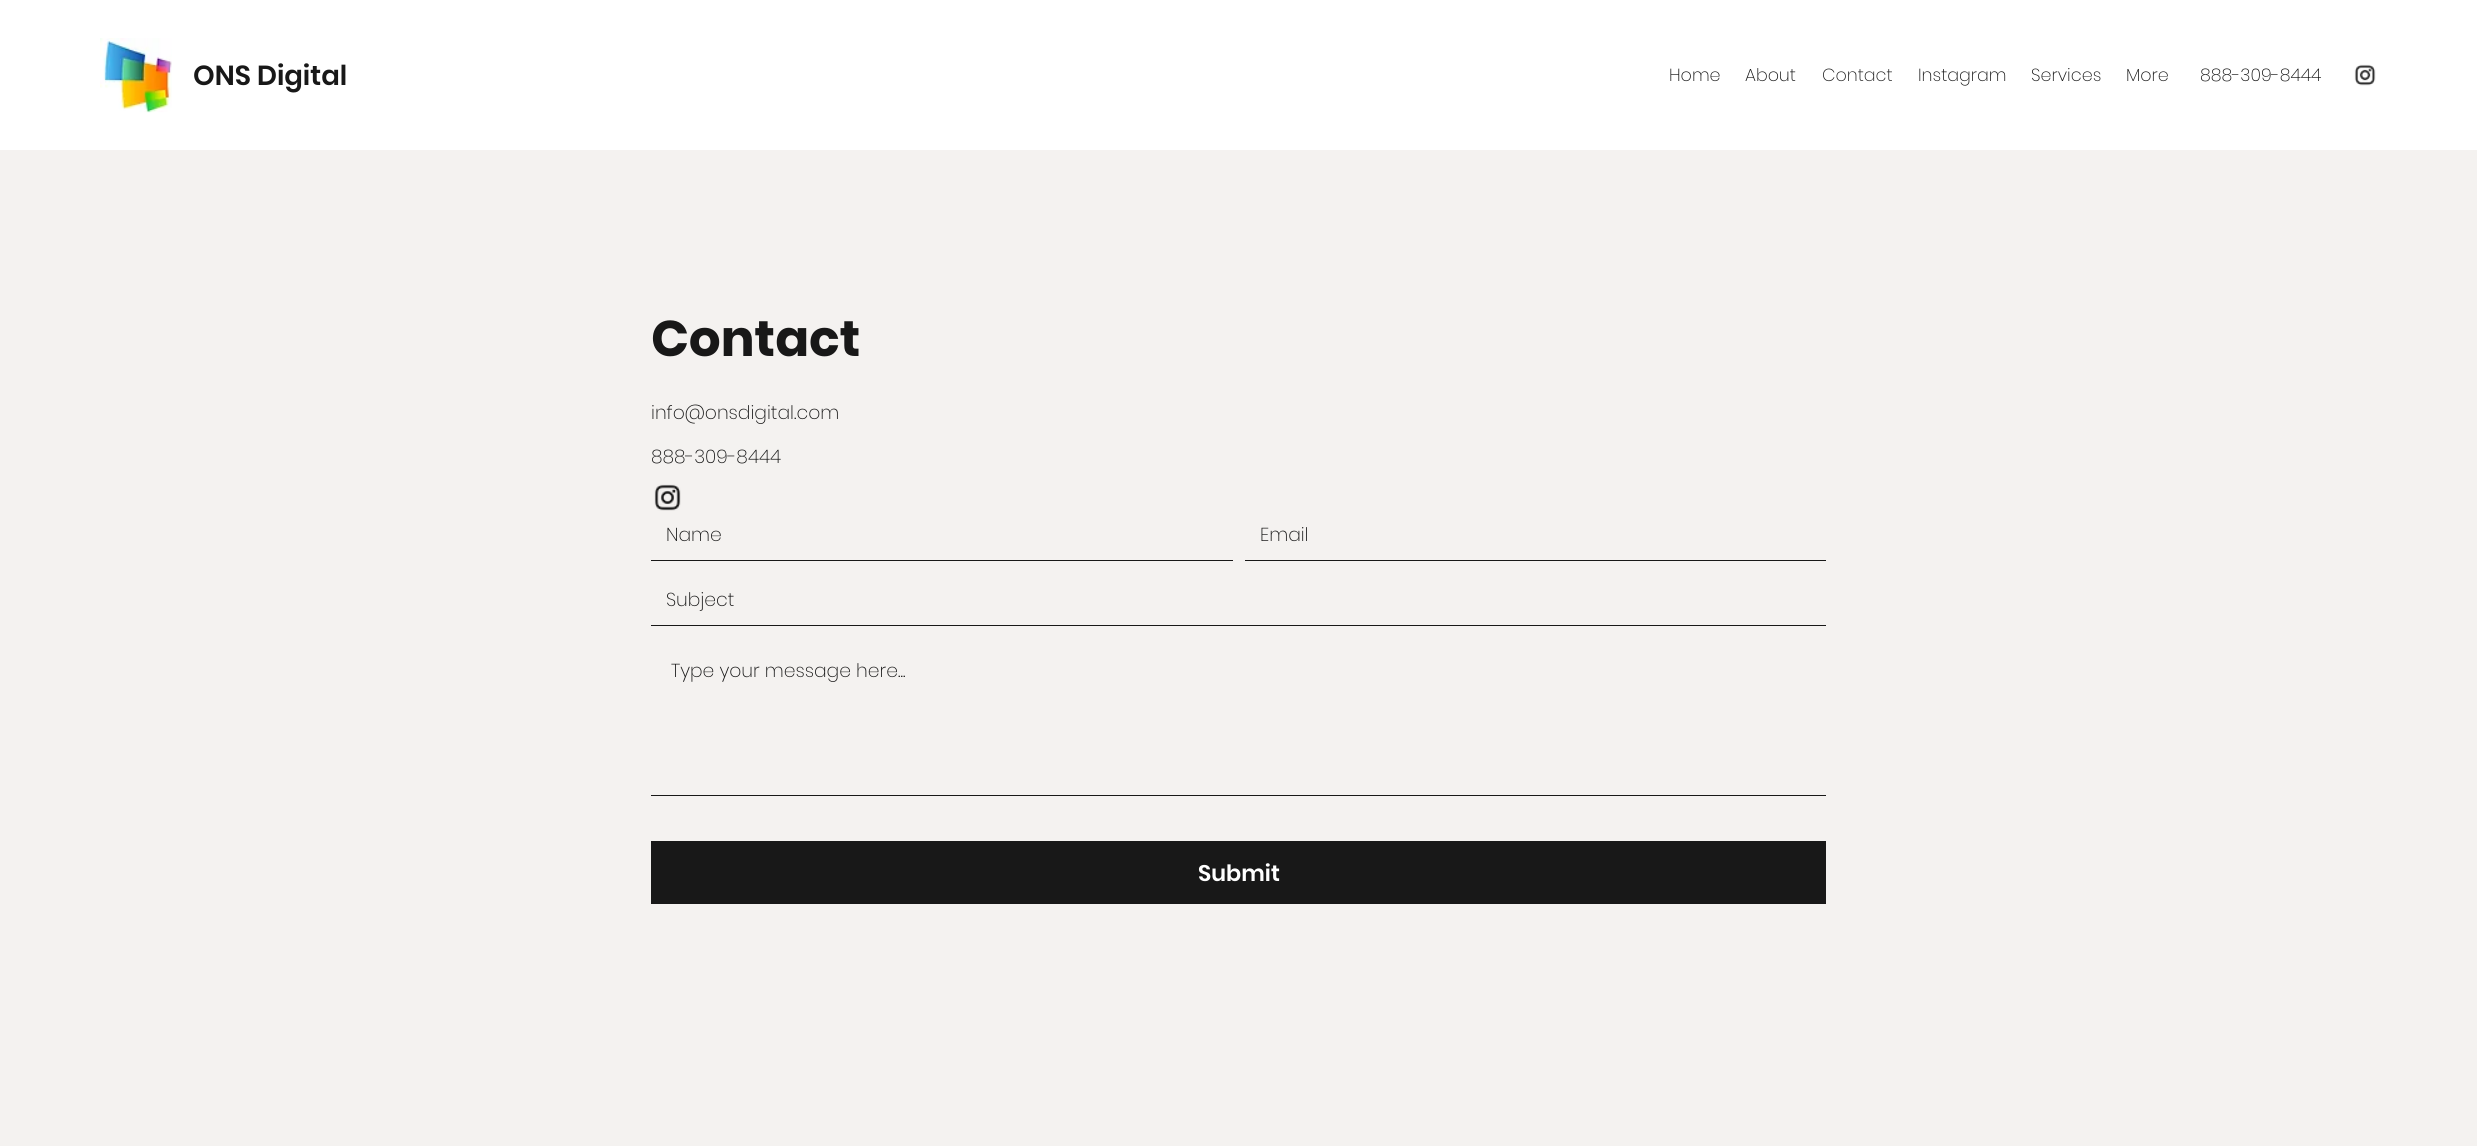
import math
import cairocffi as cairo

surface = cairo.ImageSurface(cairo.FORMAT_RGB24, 2477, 1146)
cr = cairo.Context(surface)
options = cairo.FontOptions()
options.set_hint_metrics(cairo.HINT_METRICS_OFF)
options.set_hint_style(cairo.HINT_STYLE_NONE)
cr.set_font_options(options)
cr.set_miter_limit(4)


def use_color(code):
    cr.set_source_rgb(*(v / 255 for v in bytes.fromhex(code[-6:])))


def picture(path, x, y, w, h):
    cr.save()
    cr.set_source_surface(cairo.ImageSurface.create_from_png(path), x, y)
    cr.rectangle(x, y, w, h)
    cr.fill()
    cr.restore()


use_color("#ffffff")
cr.paint()
picture("img1.png", 100, 38, 72, 75)
cr.select_font_face("Poppins SemiBold")
cr.set_font_size(27.5)
use_color("#181818")
cr.move_to(193, 85)
cr.show_text("ONS Digital")
cr.select_font_face("Poppins ExtraLight")
cr.set_font_size(17.5)
cr.move_to(1669, 81)
cr.show_text("Home")
cr.move_to(1745, 81)
cr.show_text("About")
use_color("#222222")
cr.move_to(1822, 81)
cr.show_text("Contact")
use_color("#181818")
cr.move_to(1918, 81)
cr.show_text("Instagram")
cr.move_to(2031, 81)
cr.show_text("Services")
cr.move_to(2126, 81)
cr.show_text("More")
cr.move_to(2200, 81)
cr.show_text("888-309-8444")
picture("img2.png", 2354, 64, 22, 22)
use_color("#f4f2f0")
cr.rectangle(0, 150, 2477, 996)
cr.fill()
cr.select_font_face("Poppins", cairo.FONT_SLANT_NORMAL, cairo.FONT_WEIGHT_BOLD)
cr.set_font_size(50)
use_color("#181818")
cr.move_to(651, 356)
cr.show_text("Contact")
cr.select_font_face("Poppins ExtraLight")
cr.set_font_size(18.75)
cr.move_to(651, 419)
cr.show_text("info@onsdigital.com")
cr.move_to(651, 463)
cr.show_text("888-309-8444")
picture("img3.png", 654, 484, 27, 27)
cr.rectangle(651, 560, 582, 1)
cr.fill()
cr.move_to(666, 541)
cr.show_text("Name")
cr.rectangle(1245, 560, 581, 1)
cr.fill()
cr.move_to(1260, 541)
cr.show_text("Email")
cr.rectangle(651, 625, 1175, 1)
cr.fill()
cr.move_to(666, 606)
cr.show_text("Subject")
cr.rectangle(651, 795, 1175, 1)
cr.fill()
cr.move_to(671, 677)
cr.show_text("Type your message here...")
cr.rectangle(651, 841, 1175, 63)
cr.fill()
cr.select_font_face("Poppins SemiBold")
cr.set_font_size(22.5)
use_color("#ffffff")
cr.move_to(1198, 881)
cr.show_text("Submit")
surface.write_to_png("result.png")
